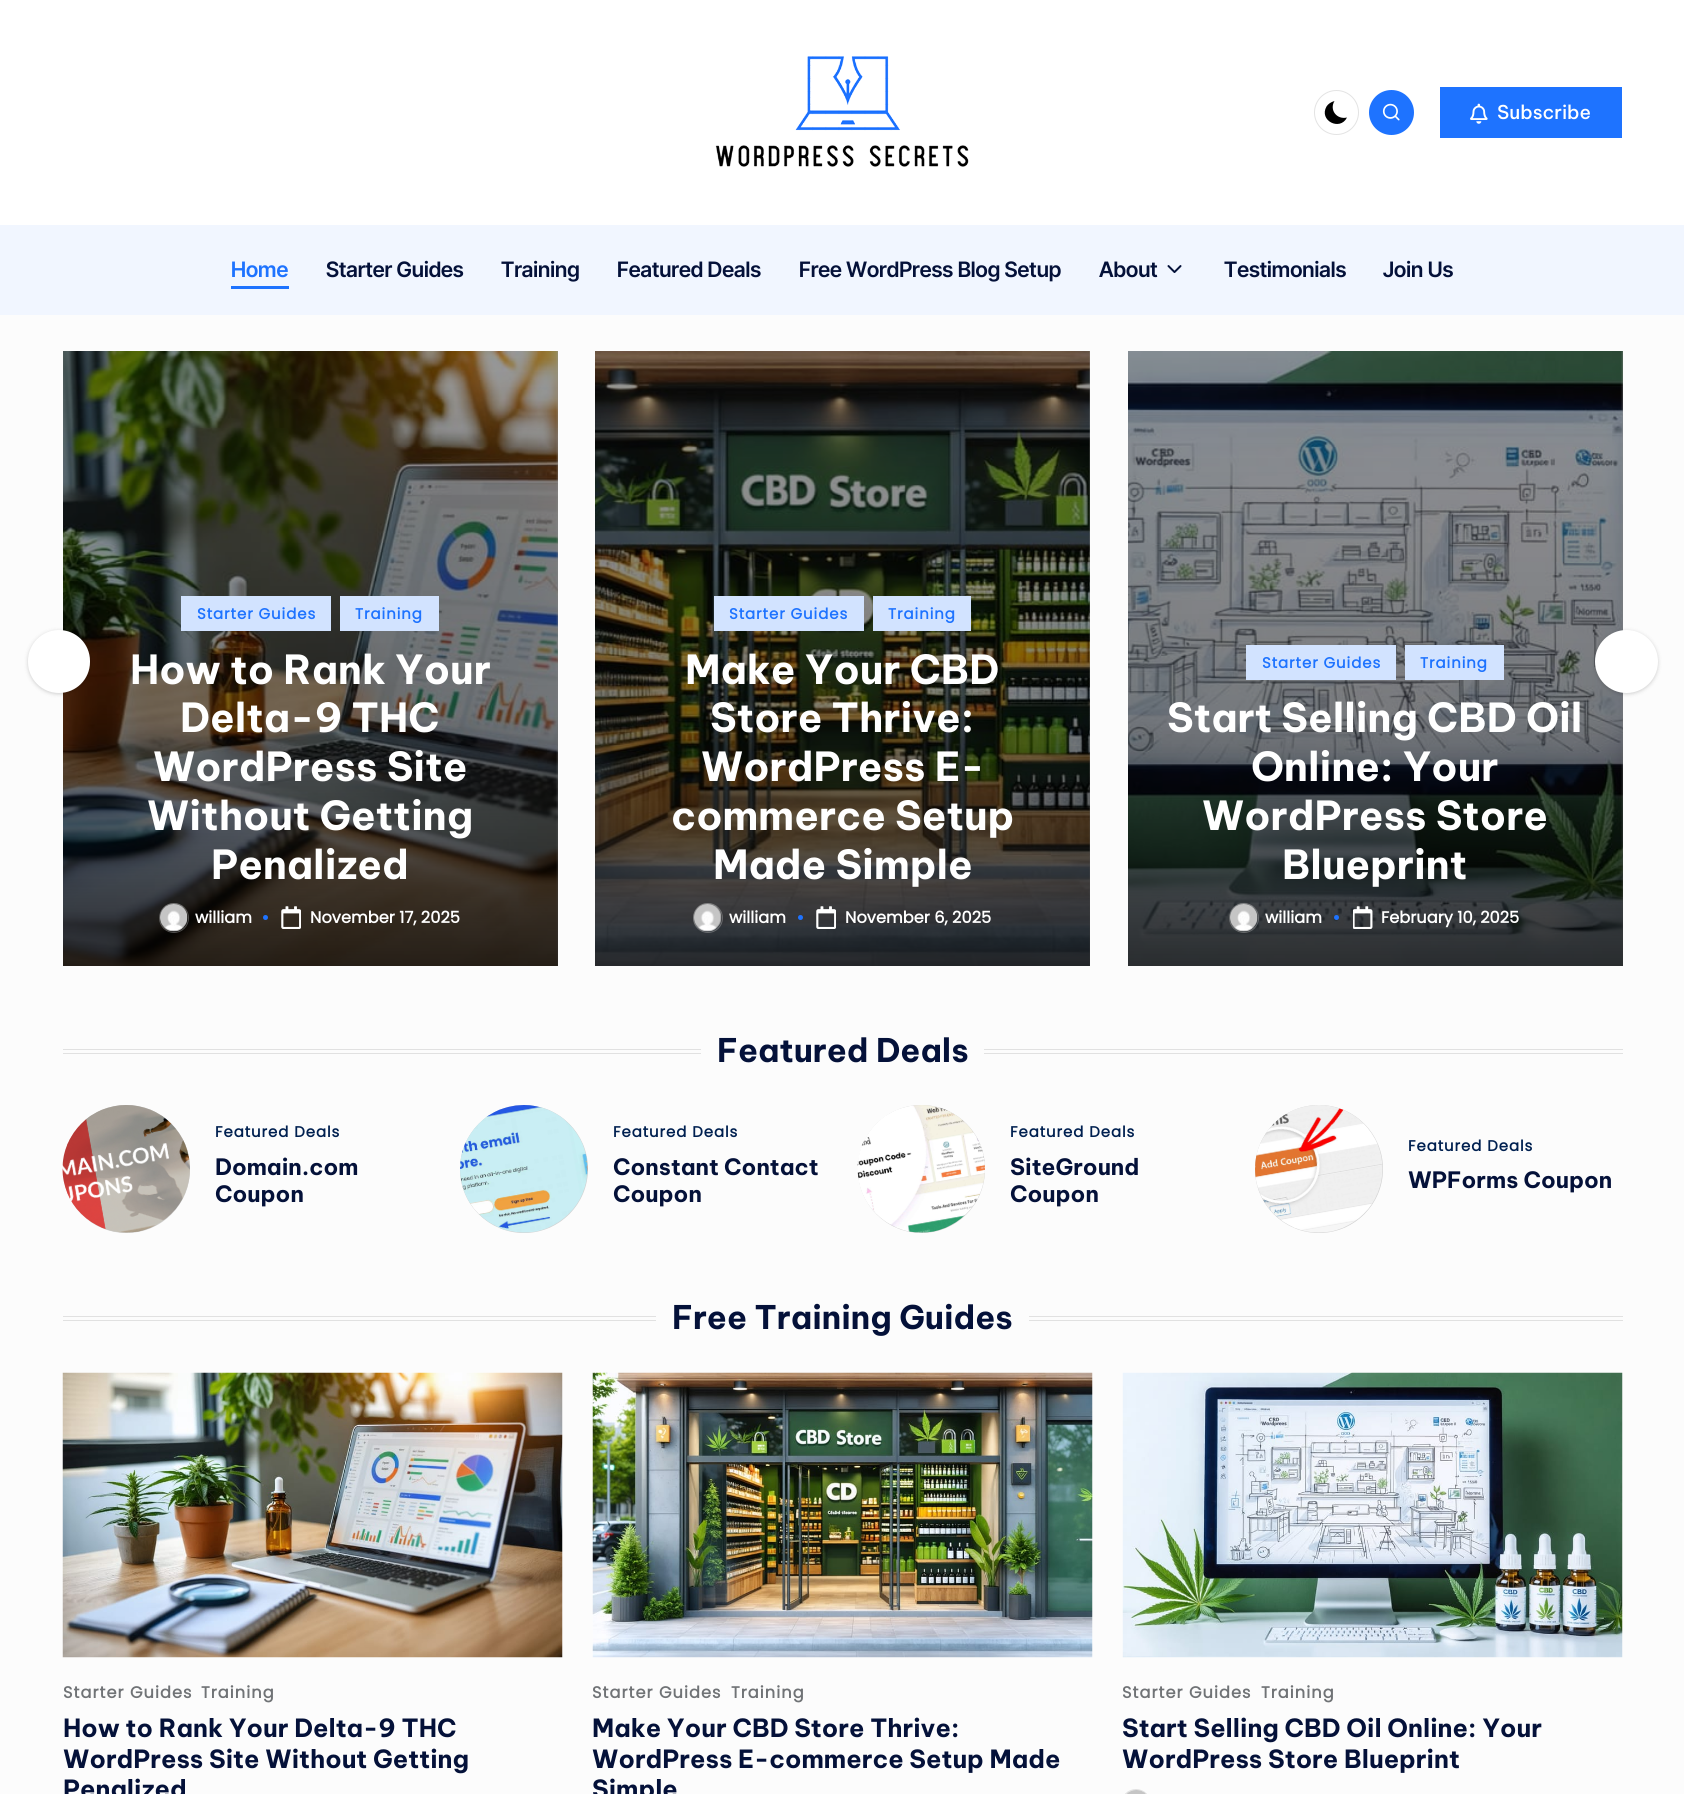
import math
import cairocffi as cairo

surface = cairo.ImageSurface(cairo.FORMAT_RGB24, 1684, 1794)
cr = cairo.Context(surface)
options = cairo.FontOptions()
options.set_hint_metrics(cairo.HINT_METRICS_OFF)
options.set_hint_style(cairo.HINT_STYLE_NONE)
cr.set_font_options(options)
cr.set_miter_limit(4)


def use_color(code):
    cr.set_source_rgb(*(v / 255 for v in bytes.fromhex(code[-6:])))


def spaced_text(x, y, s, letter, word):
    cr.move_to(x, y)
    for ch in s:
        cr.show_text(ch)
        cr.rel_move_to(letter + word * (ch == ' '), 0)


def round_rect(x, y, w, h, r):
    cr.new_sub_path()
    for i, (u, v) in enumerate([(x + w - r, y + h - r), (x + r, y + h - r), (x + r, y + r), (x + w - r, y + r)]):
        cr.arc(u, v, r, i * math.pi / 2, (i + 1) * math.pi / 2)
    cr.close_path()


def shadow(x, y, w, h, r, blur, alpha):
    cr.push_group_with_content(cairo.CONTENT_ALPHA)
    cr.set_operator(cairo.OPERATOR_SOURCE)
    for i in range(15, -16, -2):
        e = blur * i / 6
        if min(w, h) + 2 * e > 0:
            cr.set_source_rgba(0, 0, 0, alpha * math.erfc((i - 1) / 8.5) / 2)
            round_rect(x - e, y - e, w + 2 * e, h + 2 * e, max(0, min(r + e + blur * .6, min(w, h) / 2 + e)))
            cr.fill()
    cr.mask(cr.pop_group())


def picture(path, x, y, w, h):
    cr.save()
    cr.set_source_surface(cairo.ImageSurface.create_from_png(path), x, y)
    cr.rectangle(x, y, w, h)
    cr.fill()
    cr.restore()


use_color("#fcfcfc")
cr.paint()
use_color("#ffffff")
cr.rectangle(0, 0, 1684, 225)
cr.fill()
picture("img1.png", 715, 56, 254, 111)
cr.arc(1336.5, 112.5, 22, 0, 2 * math.pi)
use_color("#e3e3e3")
cr.set_line_width(1)
cr.stroke()
use_color("#000000")
cr.new_path()
cr.move_to(1347, 117.5)
cr.curve_to(1337, 120, 1329, 110, 1334.5, 101)
cr.curve_to(1331, 102, 1328, 104, 1326.5, 106.5)
cr.curve_to(1318.5, 120.5, 1340, 131.5, 1347, 117.5)
cr.close_path()
cr.fill()
use_color("#1e73ff")
cr.arc(1391.5, 112.5, 22.5, 0, 2 * math.pi)
cr.fill()
picture("img2.png", 1382, 103, 18, 18)
cr.rectangle(1440, 87, 182, 51)
cr.fill()
picture("img3.png", 1470, 103, 18, 21)
cr.select_font_face("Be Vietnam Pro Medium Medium")
cr.set_font_size(19)
use_color("#ffffff")
cr.move_to(1497, 119)
cr.show_text("Subscribe")
use_color("#f1f6ff")
cr.rectangle(0, 225, 1684, 90)
cr.fill()
cr.select_font_face("Inter Tight SemiBold")
cr.set_font_size(21.25)
use_color("#1e73ff")
cr.move_to(231, 277)
cr.show_text("Home")
cr.rectangle(231, 286, 58, 3)
cr.fill()
use_color("#041139")
cr.move_to(326, 277)
cr.show_text("Starter Guides")
cr.move_to(501, 277)
cr.show_text("Training")
cr.move_to(617, 277)
cr.show_text("Featured Deals")
cr.move_to(799, 277)
cr.show_text("Free WordPress Blog Setup")
cr.move_to(1099, 277)
cr.show_text("About")
picture("img4.png", 1167, 265, 15, 8)
cr.move_to(1224, 277)
cr.show_text("Testimonials")
cr.move_to(1383, 277)
cr.show_text("Join Us")
picture("img5.png", 63, 351, 495, 615)
gradient = cairo.LinearGradient(310, 351, 310, 966)
gradient.add_color_stop_rgba(0, 0, 0, 0, 0.4)
gradient.add_color_stop_rgba(0.59, 0, 0, 0, 0.5)
gradient.add_color_stop_rgba(1, 0, 0, 0, 0.8)
cr.set_source(gradient)
cr.rectangle(63, 351, 495, 615)
cr.fill()
use_color("#000000")
shadow(28, 631, 62, 63, 31, 2, 0.18)
use_color("#ffffff")
round_rect(28, 630, 62, 63, 31)
cr.fill()
use_color("#d2e3ff")
cr.rectangle(181, 596, 150, 35)
cr.fill()
cr.select_font_face("Poppins", cairo.FONT_SLANT_NORMAL, cairo.FONT_WEIGHT_BOLD)
cr.set_font_size(15)
use_color("#1e73ff")
spaced_text(197, 619, "Starter Guides", 0.9, 0)
use_color("#d2e3ff")
cr.rectangle(340, 596, 99, 35)
cr.fill()
use_color("#1e73ff")
spaced_text(355, 619, "Training", 0.9, 0)
cr.select_font_face("Be Vietnam Pro", cairo.FONT_SLANT_NORMAL, cairo.FONT_WEIGHT_BOLD)
cr.set_font_size(40)
use_color("#ffffff")
cr.move_to(130, 684)
cr.show_text("How to Rank Your")
cr.move_to(180, 732)
cr.show_text("Delta-9 THC")
cr.move_to(153, 781)
cr.show_text("WordPress Site")
cr.move_to(147, 830)
cr.show_text("Without Getting")
cr.move_to(211, 879)
cr.show_text("Penalized")
picture("img6.png", 160, 903, 28, 29)
cr.arc(174, 918, 14.5, 0, 2 * math.pi)
cr.set_source_rgba(0.725, 0.725, 0.725, 0.4)
cr.stroke()
cr.select_font_face("Poppins", cairo.FONT_SLANT_NORMAL, cairo.FONT_WEIGHT_BOLD)
cr.set_font_size(16.25)
use_color("#ffffff")
cr.move_to(195, 923)
cr.show_text("william")
use_color("#1e73ff")
cr.new_path()
cr.arc(265.5, 917.5, 2.5, 0, 2 * math.pi)
cr.fill()
picture("img7.png", 281, 906, 20, 23)
use_color("#ffffff")
cr.move_to(310, 923)
cr.show_text("November 17, 2025")
picture("img8.png", 595, 351, 495, 615)
gradient = cairo.LinearGradient(843, 351, 843, 966)
gradient.add_color_stop_rgba(0, 0, 0, 0, 0.4)
gradient.add_color_stop_rgba(0.59, 0, 0, 0, 0.5)
gradient.add_color_stop_rgba(1, 0, 0, 0, 0.8)
cr.set_source(gradient)
cr.rectangle(595, 351, 495, 615)
cr.fill()
use_color("#d2e3ff")
cr.rectangle(714, 596, 150, 35)
cr.fill()
cr.set_font_size(15)
use_color("#1e73ff")
spaced_text(729, 619, "Starter Guides", 0.9, 0)
use_color("#d2e3ff")
cr.rectangle(873, 596, 98, 35)
cr.fill()
use_color("#1e73ff")
spaced_text(888, 619, "Training", 0.9, 0)
cr.select_font_face("Be Vietnam Pro", cairo.FONT_SLANT_NORMAL, cairo.FONT_WEIGHT_BOLD)
cr.set_font_size(40)
use_color("#ffffff")
cr.move_to(685, 684)
cr.show_text("Make Your CBD")
cr.move_to(710, 732)
cr.show_text("Store Thrive:")
cr.move_to(701, 781)
cr.show_text("WordPress E-")
cr.move_to(671, 830)
cr.show_text("commerce Setup")
cr.move_to(713, 879)
cr.show_text("Made Simple")
picture("img9.png", 693, 903, 29, 29)
cr.arc(708, 918, 14.5, 0, 2 * math.pi)
cr.set_source_rgba(0.725, 0.725, 0.725, 0.4)
cr.stroke()
cr.select_font_face("Poppins", cairo.FONT_SLANT_NORMAL, cairo.FONT_WEIGHT_BOLD)
cr.set_font_size(16.25)
use_color("#ffffff")
cr.move_to(729, 923)
cr.show_text("william")
use_color("#1e73ff")
cr.new_path()
cr.arc(800.5, 917.5, 2.5, 0, 2 * math.pi)
cr.fill()
picture("img10.png", 816, 906, 20, 23)
use_color("#ffffff")
cr.move_to(845, 923)
cr.show_text("November 6, 2025")
picture("img11.png", 1128, 351, 495, 615)
gradient = cairo.LinearGradient(1375, 351, 1375, 966)
gradient.add_color_stop_rgba(0, 0, 0, 0, 0.4)
gradient.add_color_stop_rgba(0.59, 0, 0, 0, 0.5)
gradient.add_color_stop_rgba(1, 0, 0, 0, 0.8)
cr.set_source(gradient)
cr.rectangle(1128, 351, 495, 615)
cr.fill()
use_color("#d2e3ff")
cr.rectangle(1246, 645, 150, 35)
cr.fill()
cr.set_font_size(15)
use_color("#1e73ff")
spaced_text(1262, 668, "Starter Guides", 0.9, 0)
use_color("#d2e3ff")
cr.rectangle(1405, 645, 99, 35)
cr.fill()
use_color("#1e73ff")
spaced_text(1420, 668, "Training", 0.9, 0)
cr.select_font_face("Be Vietnam Pro", cairo.FONT_SLANT_NORMAL, cairo.FONT_WEIGHT_BOLD)
cr.set_font_size(40)
use_color("#ffffff")
cr.move_to(1167, 732)
cr.show_text("Start Selling CBD Oil")
cr.move_to(1251, 781)
cr.show_text("Online: Your")
cr.move_to(1202, 830)
cr.show_text("WordPress Store")
cr.move_to(1282, 879)
cr.show_text("Blueprint")
picture("img12.png", 1230, 903, 28, 29)
cr.arc(1244, 918, 14.5, 0, 2 * math.pi)
cr.set_source_rgba(0.725, 0.725, 0.725, 0.4)
cr.stroke()
cr.select_font_face("Poppins", cairo.FONT_SLANT_NORMAL, cairo.FONT_WEIGHT_BOLD)
cr.set_font_size(16.25)
use_color("#ffffff")
cr.move_to(1265, 923)
cr.show_text("william")
use_color("#1e73ff")
cr.new_path()
cr.arc(1336.5, 917.5, 2.5, 0, 2 * math.pi)
cr.fill()
picture("img13.png", 1353, 906, 20, 23)
use_color("#ffffff")
cr.move_to(1381, 923)
cr.show_text("February 10, 2025")
use_color("#000000")
shadow(1595, 631, 63, 63, 31.5, 2, 0.18)
use_color("#ffffff")
cr.arc(1626.5, 661.5, 31.5, 0, 2 * math.pi)
cr.fill()
use_color("#e1e1e1")
cr.rectangle(63, 1049, 638, 1)
cr.fill()
cr.rectangle(63, 1053, 638, 1)
cr.fill()
cr.select_font_face("Be Vietnam Pro", cairo.FONT_SLANT_NORMAL, cairo.FONT_WEIGHT_BOLD)
cr.set_font_size(32.5)
use_color("#041139")
cr.move_to(717, 1062)
cr.show_text("Featured Deals")
use_color("#e1e1e1")
cr.rectangle(984, 1049, 639, 1)
cr.fill()
cr.rectangle(984, 1053, 639, 1)
cr.fill()
use_color("#d1d1d1")
round_rect(63, 1105, 127, 128, 63.5)
cr.fill()
picture("img14.png", 62, 1105, 128, 128)
cr.select_font_face("Poppins", cairo.FONT_SLANT_NORMAL, cairo.FONT_WEIGHT_BOLD)
cr.set_font_size(15)
use_color("#002050")
spaced_text(215, 1137, "Featured Deals", 0.9, 0)
cr.select_font_face("Be Vietnam Pro", cairo.FONT_SLANT_NORMAL, cairo.FONT_WEIGHT_BOLD)
cr.set_font_size(22.5)
use_color("#041139")
cr.move_to(215, 1175)
cr.show_text("Domain.com")
cr.move_to(215, 1202)
cr.show_text("Coupon")
use_color("#d1d1d1")
cr.new_path()
cr.arc(524, 1169, 64, 0, 2 * math.pi)
cr.fill()
picture("img15.png", 460, 1105, 128, 128)
cr.select_font_face("Poppins", cairo.FONT_SLANT_NORMAL, cairo.FONT_WEIGHT_BOLD)
cr.set_font_size(15)
use_color("#002050")
spaced_text(613, 1137, "Featured Deals", 0.9, 0)
cr.select_font_face("Be Vietnam Pro", cairo.FONT_SLANT_NORMAL, cairo.FONT_WEIGHT_BOLD)
cr.set_font_size(22.5)
use_color("#041139")
cr.move_to(613, 1175)
cr.show_text("Constant Contact")
cr.move_to(613, 1202)
cr.show_text("Coupon")
use_color("#d1d1d1")
round_rect(858, 1105, 127, 128, 63.5)
cr.fill()
picture("img16.png", 857, 1105, 128, 128)
cr.select_font_face("Poppins", cairo.FONT_SLANT_NORMAL, cairo.FONT_WEIGHT_BOLD)
cr.set_font_size(15)
use_color("#002050")
spaced_text(1010, 1137, "Featured Deals", 0.9, 0)
cr.select_font_face("Be Vietnam Pro", cairo.FONT_SLANT_NORMAL, cairo.FONT_WEIGHT_BOLD)
cr.set_font_size(22.5)
use_color("#041139")
cr.move_to(1010, 1175)
cr.show_text("SiteGround")
cr.move_to(1010, 1202)
cr.show_text("Coupon")
use_color("#d1d1d1")
cr.new_path()
cr.arc(1319, 1169, 64, 0, 2 * math.pi)
cr.fill()
picture("img17.png", 1255, 1105, 128, 128)
cr.select_font_face("Poppins", cairo.FONT_SLANT_NORMAL, cairo.FONT_WEIGHT_BOLD)
cr.set_font_size(15)
use_color("#002050")
spaced_text(1408, 1151, "Featured Deals", 0.9, 0)
cr.select_font_face("Be Vietnam Pro", cairo.FONT_SLANT_NORMAL, cairo.FONT_WEIGHT_BOLD)
cr.set_font_size(22.5)
use_color("#041139")
cr.move_to(1408, 1188)
cr.show_text("WPForms Coupon")
use_color("#e1e1e1")
cr.rectangle(63, 1316, 593, 1)
cr.fill()
cr.rectangle(63, 1320, 593, 1)
cr.fill()
cr.set_font_size(32.5)
use_color("#041139")
cr.move_to(672, 1329)
cr.show_text("Free Training Guides")
use_color("#e1e1e1")
cr.rectangle(1029, 1316, 594, 1)
cr.fill()
cr.rectangle(1029, 1320, 594, 1)
cr.fill()
picture("img18.png", 62, 1372, 501, 286)
cr.select_font_face("Poppins", cairo.FONT_SLANT_NORMAL, cairo.FONT_WEIGHT_BOLD)
cr.set_font_size(16.25)
use_color("#707376")
spaced_text(63, 1698, "Starter Guides", 1, 0)
spaced_text(201, 1698, "Training", 1, 0)
cr.select_font_face("Be Vietnam Pro", cairo.FONT_SLANT_NORMAL, cairo.FONT_WEIGHT_BOLD)
cr.set_font_size(25)
use_color("#041139")
cr.move_to(63, 1737)
cr.show_text("How to Rank Your Delta-9 THC")
cr.move_to(63, 1768)
cr.show_text("WordPress Site Without Getting")
cr.move_to(63, 1798)
cr.show_text("Penalized")
picture("img19.png", 592, 1372, 501, 286)
cr.select_font_face("Poppins", cairo.FONT_SLANT_NORMAL, cairo.FONT_WEIGHT_BOLD)
cr.set_font_size(16.25)
use_color("#707376")
spaced_text(592, 1698, "Starter Guides", 1, 0)
spaced_text(731, 1698, "Training", 1, 0)
cr.select_font_face("Be Vietnam Pro", cairo.FONT_SLANT_NORMAL, cairo.FONT_WEIGHT_BOLD)
cr.set_font_size(25)
use_color("#041139")
cr.move_to(592, 1737)
cr.show_text("Make Your CBD Store Thrive:")
cr.move_to(592, 1768)
cr.show_text("WordPress E-commerce Setup Made")
cr.move_to(592, 1798)
cr.show_text("Simple")
picture("img20.png", 1122, 1372, 501, 286)
cr.select_font_face("Poppins", cairo.FONT_SLANT_NORMAL, cairo.FONT_WEIGHT_BOLD)
cr.set_font_size(16.25)
use_color("#707376")
spaced_text(1122, 1698, "Starter Guides", 1, 0)
spaced_text(1261, 1698, "Training", 1, 0)
cr.select_font_face("Be Vietnam Pro", cairo.FONT_SLANT_NORMAL, cairo.FONT_WEIGHT_BOLD)
cr.set_font_size(25)
use_color("#041139")
cr.move_to(1122, 1737)
cr.show_text("Start Selling CBD Oil Online: Your")
cr.move_to(1122, 1768)
cr.show_text("WordPress Store Blueprint")
picture("img21.png", 1126, 1790, 20, 4)
round_rect(1121.5, 1789.5, 29, 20, 14.5)
cr.set_source_rgba(0.725, 0.725, 0.725, 0.4)
cr.stroke()
surface.write_to_png("result.png")
